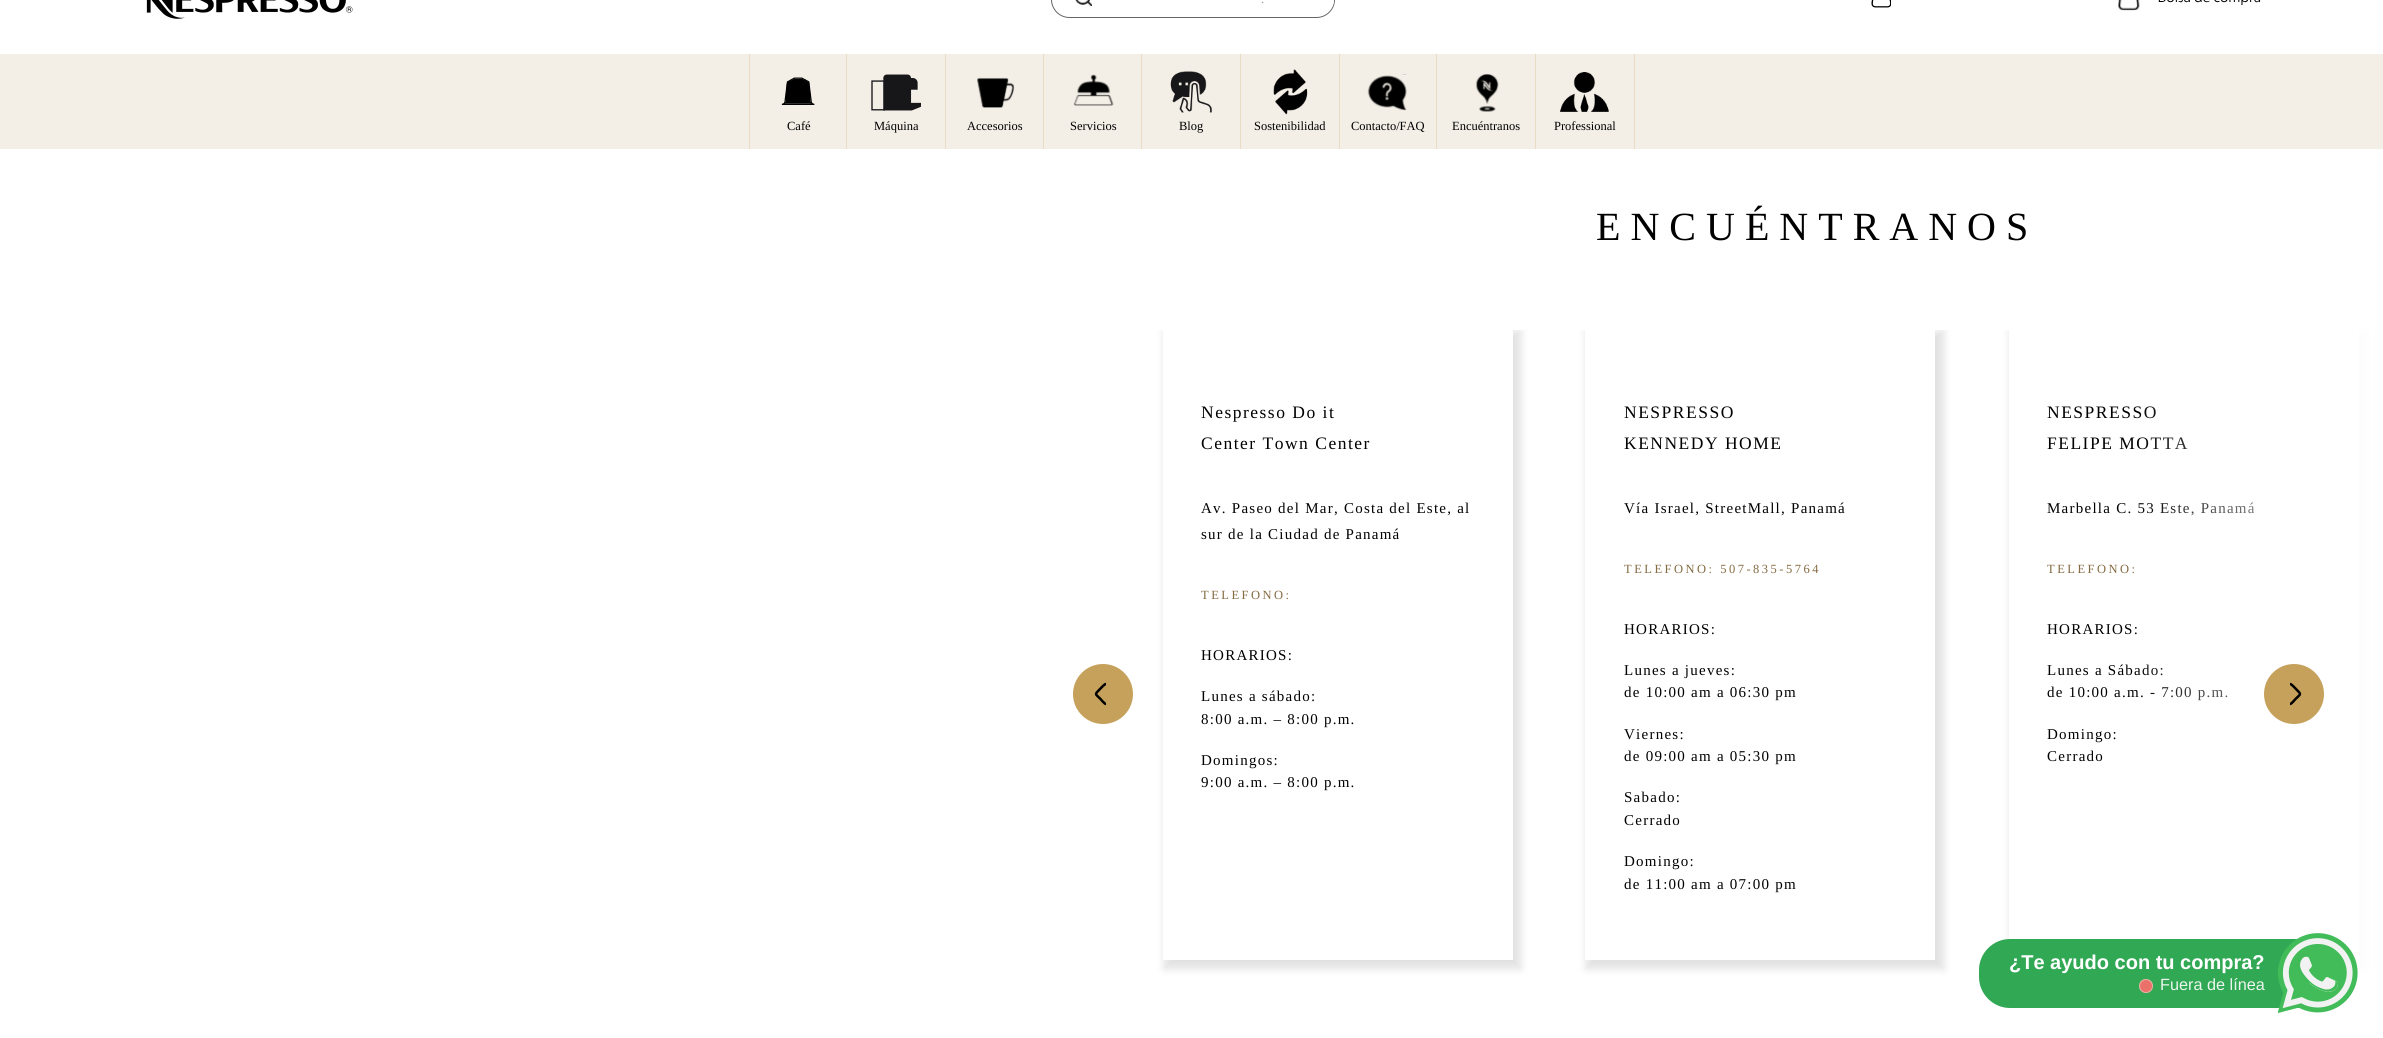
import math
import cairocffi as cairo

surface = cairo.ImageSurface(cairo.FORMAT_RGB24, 2383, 1038)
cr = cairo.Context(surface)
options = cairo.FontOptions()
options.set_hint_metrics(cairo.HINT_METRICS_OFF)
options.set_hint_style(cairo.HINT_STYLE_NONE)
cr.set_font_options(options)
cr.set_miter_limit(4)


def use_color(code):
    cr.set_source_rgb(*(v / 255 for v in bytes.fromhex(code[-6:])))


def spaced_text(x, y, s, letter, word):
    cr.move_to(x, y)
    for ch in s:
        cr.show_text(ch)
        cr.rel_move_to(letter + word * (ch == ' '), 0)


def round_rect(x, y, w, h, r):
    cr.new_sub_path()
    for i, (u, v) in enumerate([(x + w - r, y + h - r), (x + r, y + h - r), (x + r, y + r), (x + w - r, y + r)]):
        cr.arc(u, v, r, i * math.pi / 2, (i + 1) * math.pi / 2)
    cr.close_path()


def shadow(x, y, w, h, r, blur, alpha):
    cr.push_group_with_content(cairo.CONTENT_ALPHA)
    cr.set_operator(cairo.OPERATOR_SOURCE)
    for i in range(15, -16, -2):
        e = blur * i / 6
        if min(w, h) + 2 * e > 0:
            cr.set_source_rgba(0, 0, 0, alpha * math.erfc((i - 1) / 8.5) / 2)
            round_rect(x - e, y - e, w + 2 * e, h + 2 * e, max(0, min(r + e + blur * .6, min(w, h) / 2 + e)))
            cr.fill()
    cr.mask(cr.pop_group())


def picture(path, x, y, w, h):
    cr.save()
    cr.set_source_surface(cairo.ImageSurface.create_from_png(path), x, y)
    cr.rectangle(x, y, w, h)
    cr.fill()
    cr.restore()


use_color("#ffffff")
cr.paint()
picture("img1.png", 146, 0, 207, 19)
round_rect(1051.5, -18.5, 283, 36, 18)
use_color("#666666")
cr.set_line_width(1)
cr.stroke()
picture("img2.png", 1075, 0, 17, 6)
cr.select_font_face("Liberation Serif")
cr.set_font_size(12.5)
use_color("#979899")
cr.move_to(1261, 3)
cr.show_text(".")
use_color("#ffffff")
cr.new_path()
cr.move_to(1269, -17)
cr.line_to(1317.5, -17)
cr.curve_to(1326.5, -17, 1334, -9.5, 1334, -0.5)
cr.curve_to(1334, 8.5, 1326.5, 16, 1317.5, 16)
cr.line_to(1269, 16)
cr.close_path()
cr.fill()
picture("img3.png", 1871, 0, 20, 8)
picture("img4.png", 2118, 0, 143, 11)
use_color("#f3eee6")
cr.rectangle(0, 54, 2383, 95)
cr.fill()
use_color("#eadcc2")
cr.rectangle(846, 54, 1, 95)
cr.fill()
cr.rectangle(749, 54, 1, 95)
cr.fill()
picture("img5.png", 781, 77, 34, 28)
use_color("#000000")
cr.move_to(787, 130)
cr.show_text("Café")
use_color("#eadcc2")
cr.rectangle(945, 54, 1, 95)
cr.fill()
picture("img6.png", 871, 74, 50, 37)
use_color("#000000")
cr.move_to(874, 130)
cr.show_text("Máquina")
use_color("#eadcc2")
cr.rectangle(1043, 54, 1, 95)
cr.fill()
picture("img7.png", 977, 77, 38, 31)
use_color("#000000")
cr.move_to(967, 130)
cr.show_text("Accesorios")
use_color("#eadcc2")
cr.rectangle(1141, 54, 1, 95)
cr.fill()
picture("img8.png", 1073, 74, 41, 32)
use_color("#000000")
cr.move_to(1070, 130)
cr.show_text("Servicios")
use_color("#eadcc2")
cr.rectangle(1240, 54, 1, 95)
cr.fill()
picture("img9.png", 1170, 71, 43, 42)
use_color("#000000")
cr.move_to(1179, 130)
cr.show_text("Blog")
use_color("#eadcc2")
cr.rectangle(1339, 54, 1, 95)
cr.fill()
picture("img10.png", 1273, 69, 35, 46)
use_color("#000000")
cr.move_to(1254, 130)
cr.show_text("Sostenibilidad")
use_color("#eadcc2")
cr.rectangle(1436, 54, 1, 95)
cr.fill()
picture("img11.png", 1367, 74, 40, 37)
use_color("#000000")
cr.move_to(1351, 130)
cr.show_text("Contacto/FAQ")
use_color("#eadcc2")
cr.rectangle(1535, 54, 1, 95)
cr.fill()
picture("img12.png", 1475, 72, 24, 40)
use_color("#000000")
cr.move_to(1452, 130)
cr.show_text("Encuéntranos")
use_color("#eadcc2")
cr.rectangle(1634, 54, 1, 95)
cr.fill()
picture("img13.png", 1560, 72, 49, 40)
use_color("#000000")
cr.move_to(1554, 130)
cr.show_text("Professional")
cr.save()
cr.rectangle(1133, 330, 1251, 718)
cr.clip()
use_color("#000000")
shadow(2010, 331, 358, 638, 0, 4.5, 0.12)
cr.restore()
use_color("#ffffff")
cr.rectangle(2009, 330, 350, 630)
cr.fill()
cr.set_font_size(17.5)
use_color("#000000")
spaced_text(2047, 418, "NESPRESSO", 1.5, 0)
spaced_text(2047, 449, "FELIPE MOTTA", 1.5, 0)
cr.set_font_size(15)
spaced_text(2047, 513, "Marbella C. 53 Este, Panamá", 1.25, 0)
spaced_text(2047, 675, "Lunes a Sábado:", 1.25, 0)
spaced_text(2047, 697, "de 10:00 a.m. - 7:00 p.m.", 1.25, 0)
gradient = cairo.LinearGradient(2134, 689, 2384, 689)
gradient.add_color_stop_rgba(0, 1, 1, 1, 0)
gradient.add_color_stop_rgba(1, 1, 1, 1, 1)
cr.set_source(gradient)
cr.rectangle(2139, 330, 235, 645)
cr.fill()
use_color("#31a854")
cr.new_path()
cr.move_to(2010, 939)
cr.line_to(2309, 939)
cr.line_to(2309, 1008)
cr.line_to(2010, 1008)
cr.curve_to(1993, 1008, 1979, 994, 1979, 977)
cr.line_to(1979, 970)
cr.curve_to(1979, 953, 1993, 939, 2010, 939)
cr.close_path()
cr.fill()
cr.select_font_face("Liberation Sans", cairo.FONT_SLANT_NORMAL, cairo.FONT_WEIGHT_BOLD)
cr.set_font_size(20)
use_color("#ffffff")
cr.move_to(2009, 969)
cr.show_text("¿Te ayudo con tu compra?")
use_color("#ea7169")
cr.new_path()
cr.arc(2146, 986, 7, 0, 2 * math.pi)
cr.fill()
cr.arc(2146, 986, 6.5, 0, 2 * math.pi)
cr.set_source_rgba(0.918, 0.965, 0.933, 0.5)
cr.stroke()
cr.select_font_face("Liberation Sans")
cr.set_font_size(16.25)
use_color("#eaf6ee")
cr.move_to(2160, 990)
cr.show_text("Fuera de línea")
picture("img14.png", 2278, 933, 80, 80)
cr.select_font_face("Liberation Serif")
cr.set_font_size(40)
use_color("#000000")
spaced_text(1596, 240, "ENCUÉNTRANOS", 10, 0)
use_color("#c6a15b")
cr.new_path()
cr.arc(1103, 694, 30, 0, 2 * math.pi)
cr.fill()
cr.new_path()
cr.move_to(1106, 704)
cr.curve_to(1104.5, 704, 1101.5, 700, 1100.5, 699)
cr.curve_to(1094.5, 693, 1094.5, 695, 1100.5, 688.5)
cr.curve_to(1101.5, 687.5, 1104.5, 684, 1106, 684)
use_color("#000000")
cr.set_line_width(2.5)
cr.stroke()
cr.save()
cr.rectangle(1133, 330, 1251, 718)
cr.clip()
use_color("#000000")
shadow(1164, 331, 357, 638, 0, 4.5, 0.12)
cr.restore()
use_color("#ffffff")
cr.rectangle(1163, 330, 350, 630)
cr.fill()
cr.set_font_size(17.5)
use_color("#000000")
spaced_text(1201, 418, "Nespresso Do it", 1.5, 0)
spaced_text(1201, 449, "Center Town Center", 1.5, 0)
cr.set_font_size(15)
spaced_text(1201, 513, "Av. Paseo del Mar, Costa del Este, al", 1.25, 0)
spaced_text(1201, 539, "sur de la Ciudad de Panamá", 1.25, 0)
cr.set_font_size(12.5)
use_color("#856a42")
spaced_text(1201, 599, "TELEFONO:", 2.5, 0)
cr.set_font_size(15)
use_color("#000000")
spaced_text(1201, 660, "HORARIOS:", 1.25, 0)
spaced_text(1201, 701, "Lunes a sábado:", 1.25, 0)
spaced_text(1201, 724, "8:00 a.m. – 8:00 p.m.", 1.25, 0)
spaced_text(1201, 765, "Domingos:", 1.25, 0)
spaced_text(1201, 787, "9:00 a.m. – 8:00 p.m.", 1.25, 0)
cr.save()
cr.rectangle(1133, 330, 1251, 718)
cr.clip()
cr.set_fill_rule(cairo.FILL_RULE_EVEN_ODD)
cr.new_path()
cr.move_to(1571, 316)
cr.line_to(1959, 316)
cr.line_to(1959, 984)
cr.line_to(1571, 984)
cr.close_path()
cr.move_to(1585, 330)
cr.line_to(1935, 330)
cr.line_to(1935, 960)
cr.line_to(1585, 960)
cr.close_path()
cr.clip()
use_color("#000000")
shadow(1586, 331, 358, 638, 0, 4.5, 0.12)
cr.restore()
cr.set_font_size(17.5)
spaced_text(1624, 418, "NESPRESSO", 1.5, 0)
spaced_text(1624, 449, "KENNEDY HOME", 1.5, 0)
cr.set_font_size(15)
spaced_text(1624, 513, "Vía Israel, StreetMall, Panamá", 1.25, 0)
cr.set_font_size(12.5)
use_color("#856a42")
spaced_text(1624, 573, "TELEFONO: 507-835-5764", 2.5, 0)
cr.set_font_size(15)
use_color("#000000")
spaced_text(1624, 634, "HORARIOS:", 1.25, 0)
spaced_text(1624, 675, "Lunes a jueves:", 1.25, 0)
spaced_text(1624, 697, "de 10:00 am a 06:30 pm", 1.25, 0)
spaced_text(1624, 739, "Viernes:", 1.25, 0)
spaced_text(1624, 761, "de 09:00 am a 05:30 pm", 1.25, 0)
spaced_text(1624, 802, "Sabado:", 1.25, 0)
spaced_text(1624, 825, "Cerrado", 1.25, 0)
spaced_text(1624, 866, "Domingo:", 1.25, 0)
spaced_text(1624, 889, "de 11:00 am a 07:00 pm", 1.25, 0)
cr.set_font_size(12.5)
use_color("#856a42")
spaced_text(2047, 573, "TELEFONO:", 2.5, 0)
cr.set_font_size(15)
use_color("#000000")
spaced_text(2047, 634, "HORARIOS:", 1.25, 0)
spaced_text(2047, 739, "Domingo:", 1.25, 0)
spaced_text(2047, 761, "Cerrado", 1.25, 0)
use_color("#c6a15b")
cr.new_path()
cr.arc(2294, 694, 30, 0, 2 * math.pi)
cr.fill()
cr.new_path()
cr.move_to(2290, 684)
cr.curve_to(2291.5, 684, 2294.5, 687.5, 2295.5, 688.5)
cr.curve_to(2301.5, 695, 2301.5, 693, 2295.5, 699)
cr.curve_to(2294.5, 700, 2291.5, 704, 2290, 704)
use_color("#000000")
cr.stroke()
surface.write_to_png("result.png")
